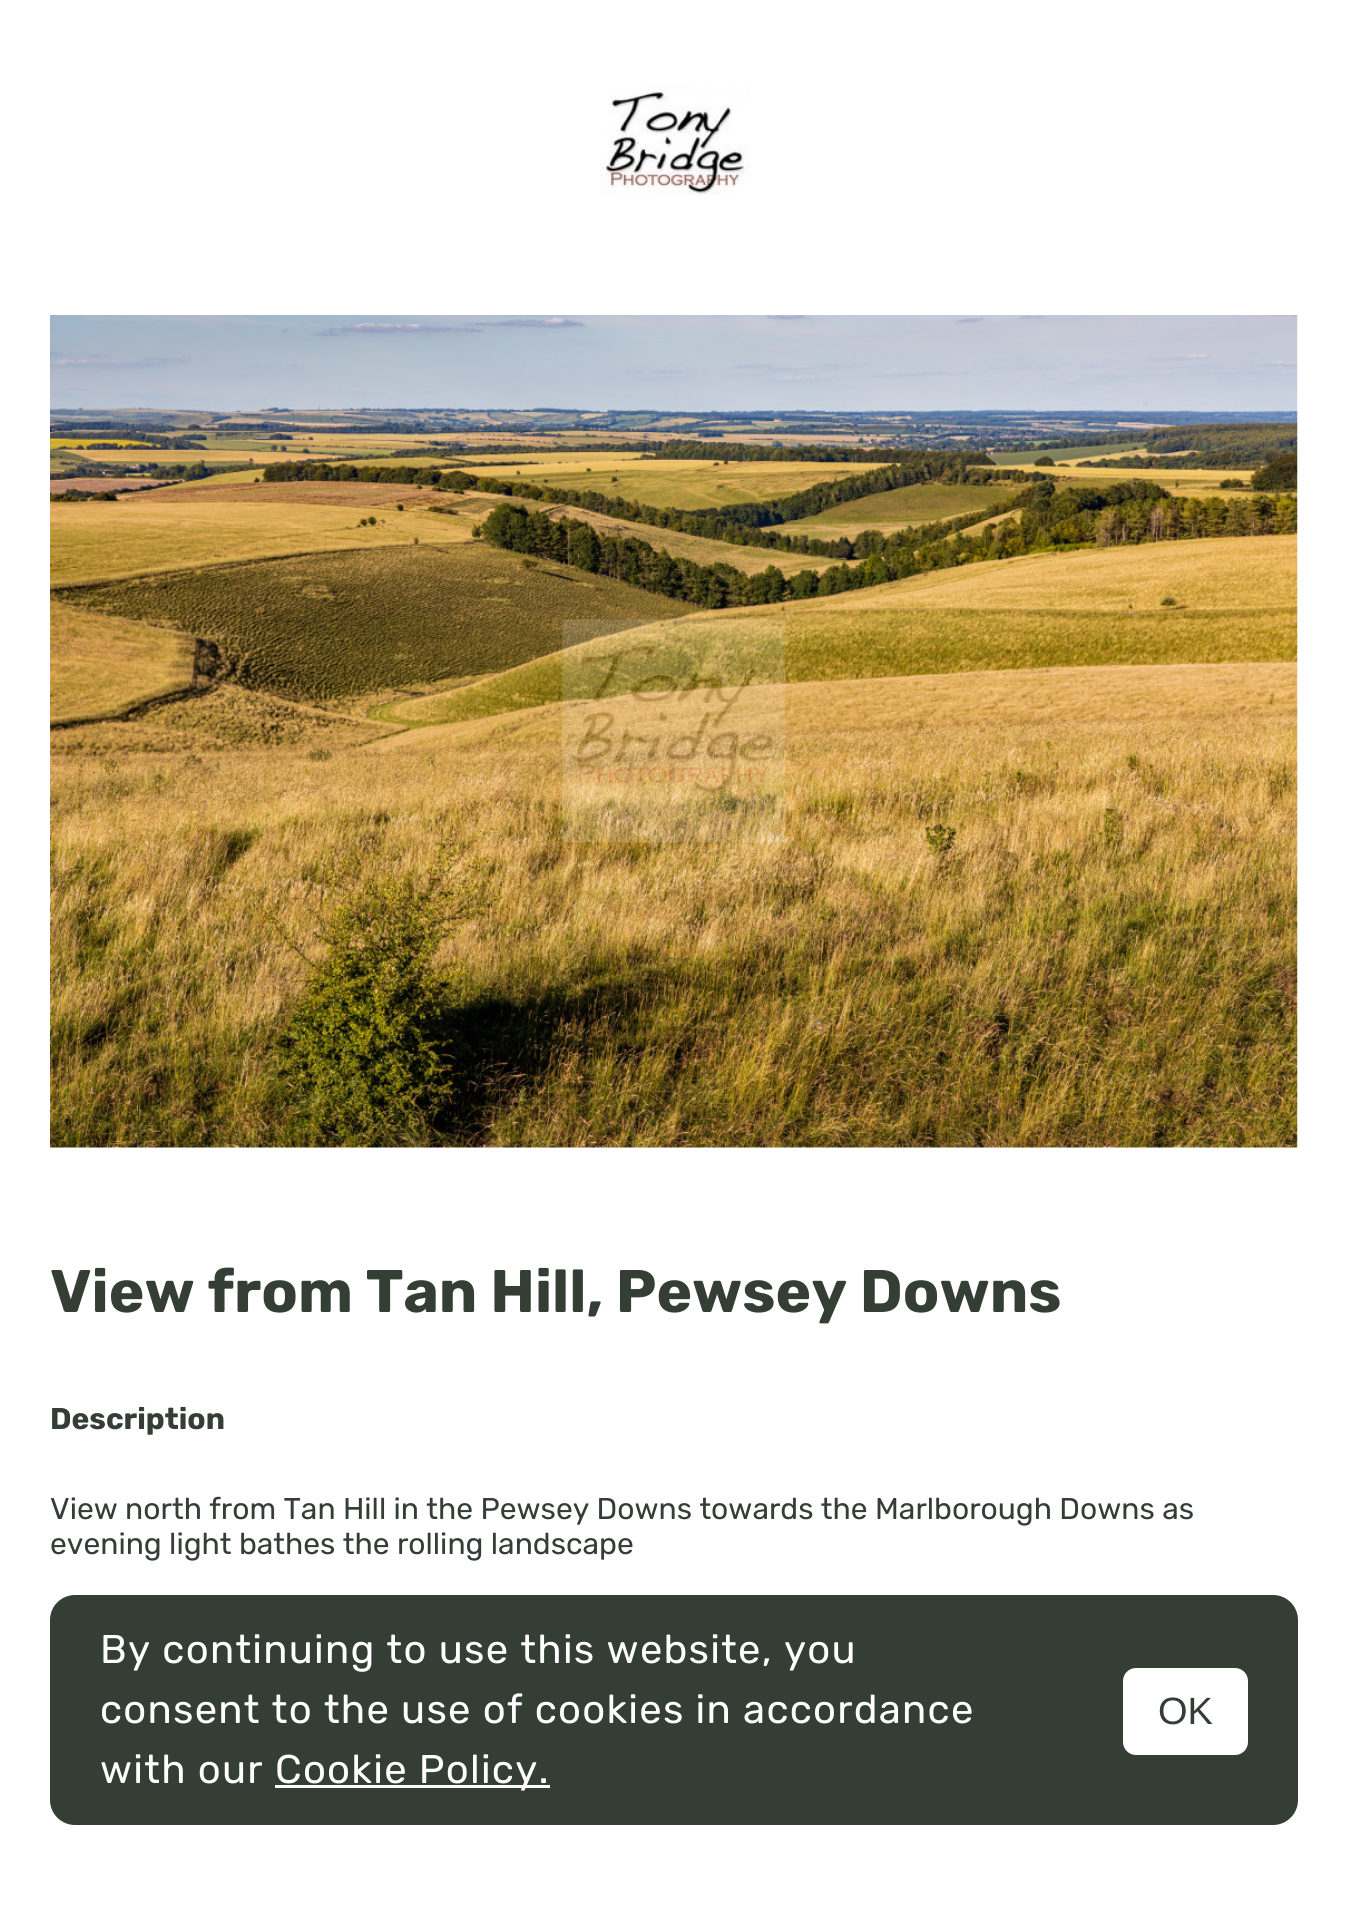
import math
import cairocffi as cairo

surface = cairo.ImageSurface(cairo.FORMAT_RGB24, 1346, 1912)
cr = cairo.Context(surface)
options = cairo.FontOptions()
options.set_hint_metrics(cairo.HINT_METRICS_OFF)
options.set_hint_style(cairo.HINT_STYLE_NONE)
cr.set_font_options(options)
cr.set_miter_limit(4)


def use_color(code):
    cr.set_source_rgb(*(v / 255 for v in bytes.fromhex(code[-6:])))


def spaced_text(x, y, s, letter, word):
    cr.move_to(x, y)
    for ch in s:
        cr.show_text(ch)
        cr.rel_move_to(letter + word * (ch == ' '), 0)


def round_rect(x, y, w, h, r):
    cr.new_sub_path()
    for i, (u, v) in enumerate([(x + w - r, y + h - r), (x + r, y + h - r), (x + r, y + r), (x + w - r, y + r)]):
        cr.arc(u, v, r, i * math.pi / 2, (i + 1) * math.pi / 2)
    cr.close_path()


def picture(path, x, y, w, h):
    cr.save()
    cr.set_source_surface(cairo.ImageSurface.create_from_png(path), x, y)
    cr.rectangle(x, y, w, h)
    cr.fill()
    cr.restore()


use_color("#ffffff")
cr.paint()
picture("img1.png", 600, 85, 150, 111)
picture("img2.png", 50, 315, 1248, 833)
cr.select_font_face("Rubik", cairo.FONT_SLANT_NORMAL, cairo.FONT_WEIGHT_BOLD)
cr.set_font_size(60)
use_color("#343e35")
cr.move_to(50, 1312)
cr.show_text("View from Tan Hill, Pewsey Downs")
cr.set_font_size(30)
cr.move_to(50, 1429)
cr.show_text("Description")
cr.select_font_face("Rubik")
cr.move_to(50, 1519)
cr.show_text("View north from Tan Hill in the Pewsey Downs towards the Marlborough Downs as")
cr.move_to(50, 1554)
cr.show_text("evening light bathes the rolling landscape")
round_rect(50, 1595, 1248, 230, 25)
cr.fill()
cr.set_font_size(40)
use_color("#ffffff")
spaced_text(100, 1663, "By continuing to use this website, you", 1.25, 0)
spaced_text(100, 1723, "consent to the use of cookies in accordance", 1.25, 0)
spaced_text(100, 1783, "with our", 1.25, 0)
cr.rectangle(275, 1785, 275, 3)
cr.fill()
spaced_text(275, 1783, "Cookie Policy.", 1.25, 0)
round_rect(1123, 1668, 125, 87, 13)
cr.fill()
cr.select_font_face("Liberation Sans")
cr.set_font_size(38)
use_color("#343e35")
cr.move_to(1158, 1724)
cr.show_text("OK")
surface.write_to_png("result.png")
